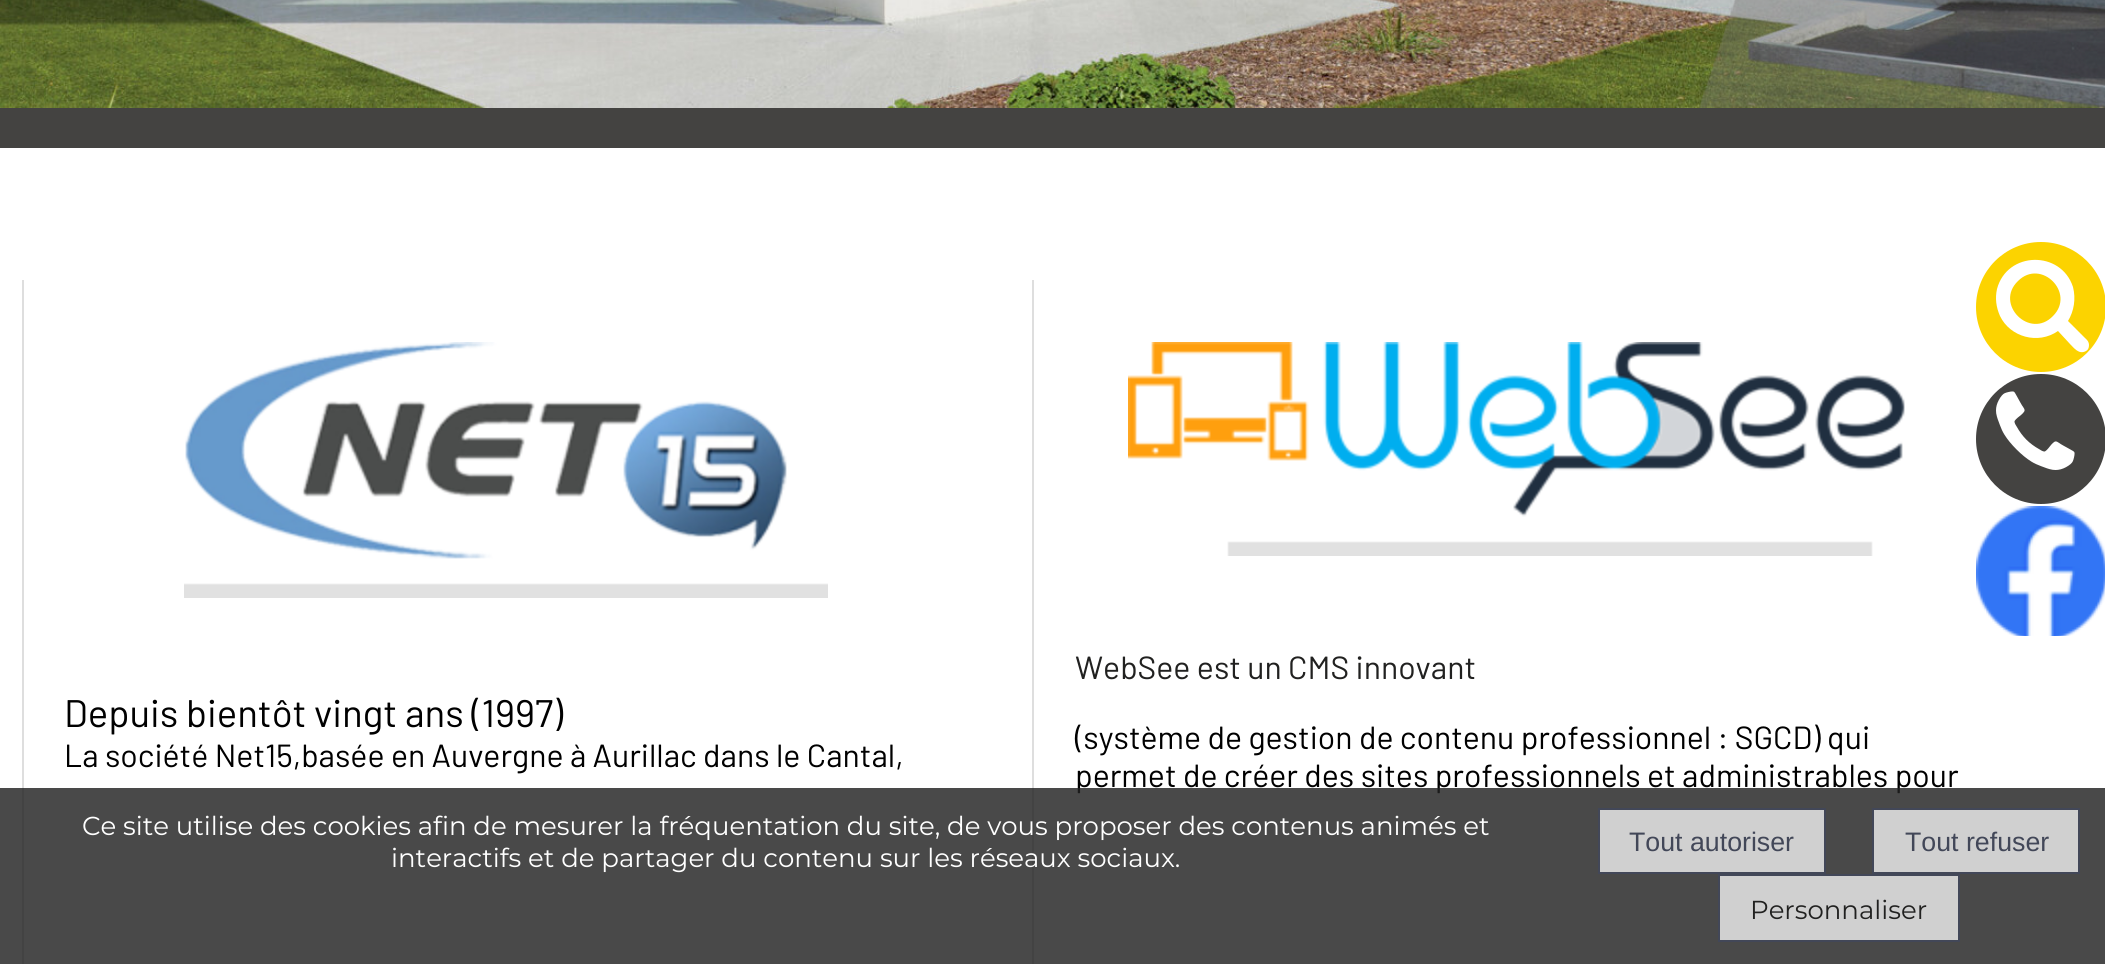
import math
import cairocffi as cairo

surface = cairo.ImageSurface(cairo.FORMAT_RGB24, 2105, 964)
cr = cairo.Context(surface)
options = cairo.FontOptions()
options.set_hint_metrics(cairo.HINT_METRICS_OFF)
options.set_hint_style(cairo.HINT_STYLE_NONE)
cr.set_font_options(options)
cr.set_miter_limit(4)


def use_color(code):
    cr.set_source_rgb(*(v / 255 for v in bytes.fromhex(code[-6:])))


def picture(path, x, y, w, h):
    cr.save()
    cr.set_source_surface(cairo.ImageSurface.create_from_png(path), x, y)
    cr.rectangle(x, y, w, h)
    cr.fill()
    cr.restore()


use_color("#ffffff")
cr.paint()
picture("img1.png", 0, 0, 2105, 108)
picture("img2.png", 1699, 0, 406, 108)
use_color("#fcd300")
cr.arc(2041, 307, 65, 0, 2 * math.pi)
cr.fill()
use_color("#ffffff")
cr.new_path()
cr.move_to(2053, 316)
cr.curve_to(2076, 293, 2041, 258, 2018, 281)
cr.curve_to(1994, 304, 2030, 340, 2053, 316)
cr.close_path()
cr.move_to(2089, 345)
cr.curve_to(2089, 348, 2088, 350, 2086, 351)
cr.curve_to(2079, 355, 2074, 348, 2070, 344)
cr.line_to(2058, 331)
cr.curve_to(2038, 345, 2010, 337, 2000, 316)
cr.curve_to(1996, 307, 1995, 298, 1997, 289)
cr.curve_to(2007, 251, 2061, 250, 2073, 287)
cr.curve_to(2076, 299, 2074, 311, 2068, 321)
cr.line_to(2087, 340)
cr.curve_to(2088, 341, 2089, 343, 2089, 345)
cr.close_path()
cr.fill()
use_color("#444341")
cr.arc(2041, 439, 65, 0, 2 * math.pi)
cr.fill()
picture("img3.png", 1996, 391, 79, 79)
picture("img4.png", 1976, 506, 129, 130)
cr.rectangle(0, 108, 2105, 40)
cr.fill()
use_color("#dedede")
cr.rectangle(22, 280, 2, 684)
cr.fill()
picture("img5.png", 184, 342, 644, 256)
cr.select_font_face("Barlow")
cr.set_font_size(38.4)
use_color("#000000")
cr.move_to(64, 727)
cr.show_text("Depuis bientôt vingt ans (1997)")
cr.set_font_size(32)
cr.move_to(64, 767)
cr.show_text("La société Net15,basée en Auvergne à Aurillac dans le Cantal,")
use_color("#dedede")
cr.rectangle(1032, 280, 2, 684)
cr.fill()
picture("img6.png", 1128, 342, 777, 214)
use_color("#212120")
cr.move_to(1075, 679)
cr.show_text("WebSee est un CMS innovant")
use_color("#000000")
cr.move_to(1075, 749)
cr.show_text("(système de gestion de contenu professionnel : SGCD) qui")
cr.move_to(1075, 787)
cr.show_text("permet de créer des sites professionnels et administrables pour")
cr.set_source_rgba(0.133, 0.133, 0.133, 0.82)
cr.rectangle(0, 788, 2105, 176)
cr.fill()
cr.select_font_face("Montserrat")
cr.set_font_size(26)
use_color("#ffffff")
cr.move_to(82, 835)
cr.show_text("Ce site utilise des cookies afin de mesurer la fréquentation du site, de vous proposer des contenus animés et")
cr.move_to(391, 867)
cr.show_text("interactifs et de partager du contenu sur les réseaux sociaux.")
cr.set_source_rgba(1, 1, 1, 0.74)
cr.rectangle(1599, 809, 226, 64)
cr.fill_preserve()
use_color("#424758")
cr.stroke()
cr.select_font_face("Liberation Sans")
cr.set_font_size(26.75)
cr.move_to(1629, 851)
cr.show_text("Tout autoriser")
use_color("#d0d0d0")
cr.rectangle(1873, 809, 206, 64)
cr.fill_preserve()
use_color("#424758")
cr.stroke()
cr.move_to(1905, 851)
cr.show_text("Tout refuser")
cr.set_source_rgba(1, 1, 1, 0.74)
cr.rectangle(1719, 875, 240, 66)
cr.fill_preserve()
use_color("#424758")
cr.stroke()
cr.select_font_face("Montserrat")
cr.set_font_size(26)
use_color("#212120")
cr.move_to(1750, 919)
cr.show_text("Personnaliser")
surface.write_to_png("result.png")
